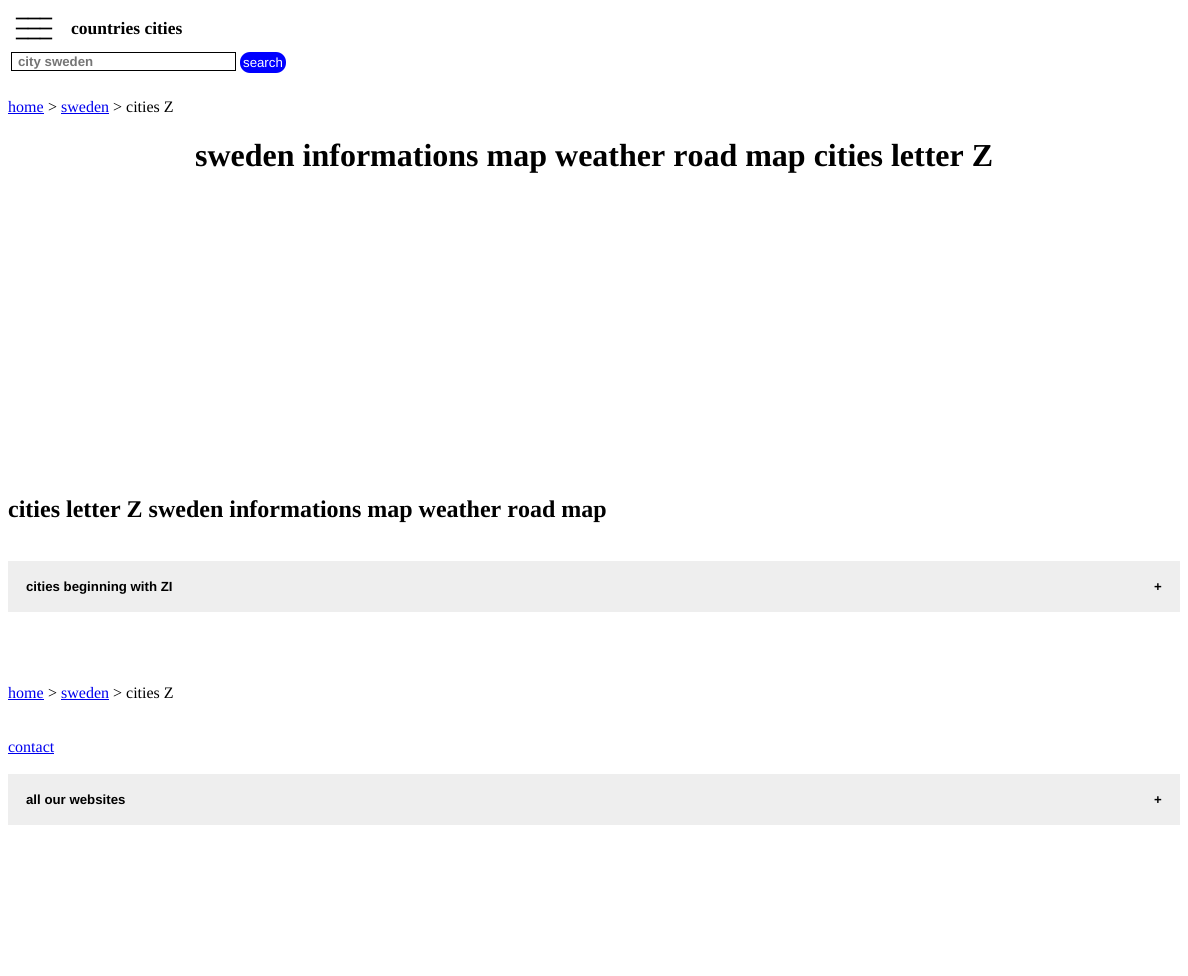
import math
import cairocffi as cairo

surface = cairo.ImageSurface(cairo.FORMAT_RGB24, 1188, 976)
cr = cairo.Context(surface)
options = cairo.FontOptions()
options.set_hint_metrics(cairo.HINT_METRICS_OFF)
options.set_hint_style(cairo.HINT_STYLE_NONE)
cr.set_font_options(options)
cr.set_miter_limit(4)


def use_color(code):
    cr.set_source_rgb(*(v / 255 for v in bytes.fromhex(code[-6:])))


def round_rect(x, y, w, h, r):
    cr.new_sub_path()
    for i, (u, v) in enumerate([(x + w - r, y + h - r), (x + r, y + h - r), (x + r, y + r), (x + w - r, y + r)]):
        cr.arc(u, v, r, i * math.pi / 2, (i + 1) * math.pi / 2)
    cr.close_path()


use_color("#ffffff")
cr.paint()
cr.select_font_face("Liberation Serif", cairo.FONT_SLANT_NORMAL, cairo.FONT_WEIGHT_BOLD)
cr.set_font_size(24)
use_color("#000000")
cr.move_to(16, 16)
cr.show_text("___")
cr.move_to(16, 26)
cr.show_text("___")
cr.move_to(16, 36)
cr.show_text("___")
cr.set_font_size(17.5)
cr.move_to(71, 34)
cr.show_text("countries cities")
cr.rectangle(11.5, 52.5, 224, 18)
cr.set_line_width(1)
cr.stroke()
cr.select_font_face("Liberation Sans", cairo.FONT_SLANT_NORMAL, cairo.FONT_WEIGHT_BOLD)
cr.set_font_size(13.25)
use_color("#757575")
cr.move_to(18, 66)
cr.show_text("city sweden")
use_color("#0000ff")
round_rect(240, 52, 46, 21, 10)
cr.fill()
cr.select_font_face("Liberation Sans")
use_color("#ffffff")
cr.move_to(243, 67)
cr.show_text("search")
cr.select_font_face("Liberation Serif")
cr.set_font_size(16)
use_color("#0000ee")
cr.move_to(8, 112)
cr.show_text("home")
cr.rectangle(8, 113, 36, 1)
cr.fill()
use_color("#000000")
cr.move_to(48, 112)
cr.show_text(">")
use_color("#0000ee")
cr.move_to(61, 112)
cr.show_text("sweden")
cr.rectangle(61, 113, 48, 1)
cr.fill()
use_color("#000000")
cr.move_to(113, 112)
cr.show_text("> cities Z")
cr.select_font_face("Liberation Serif", cairo.FONT_SLANT_NORMAL, cairo.FONT_WEIGHT_BOLD)
cr.set_font_size(32)
cr.move_to(195, 166)
cr.show_text("sweden informations map weather road map cities letter Z")
cr.set_font_size(24)
cr.move_to(8, 517)
cr.show_text("cities letter Z sweden informations map weather road map")
use_color("#eeeeee")
cr.rectangle(8, 561, 1172, 51)
cr.fill()
cr.select_font_face("Liberation Sans", cairo.FONT_SLANT_NORMAL, cairo.FONT_WEIGHT_BOLD)
cr.set_font_size(13.25)
use_color("#000000")
cr.move_to(26, 591)
cr.show_text("cities beginning with ZI")
cr.move_to(1154, 591)
cr.show_text("+")
cr.select_font_face("Liberation Serif")
cr.set_font_size(16)
use_color("#0000ee")
cr.move_to(8, 698)
cr.show_text("home")
cr.rectangle(8, 699, 36, 1)
cr.fill()
use_color("#000000")
cr.move_to(48, 698)
cr.show_text(">")
use_color("#0000ee")
cr.move_to(61, 698)
cr.show_text("sweden")
cr.rectangle(61, 699, 48, 1)
cr.fill()
use_color("#000000")
cr.move_to(113, 698)
cr.show_text("> cities Z")
use_color("#0000ee")
cr.move_to(8, 752)
cr.show_text("contact")
cr.rectangle(8, 753, 46, 1)
cr.fill()
use_color("#eeeeee")
cr.rectangle(8, 774, 1172, 51)
cr.fill()
cr.select_font_face("Liberation Sans", cairo.FONT_SLANT_NORMAL, cairo.FONT_WEIGHT_BOLD)
cr.set_font_size(13.25)
use_color("#000000")
cr.move_to(26, 804)
cr.show_text("all our websites")
cr.move_to(1154, 804)
cr.show_text("+")
surface.write_to_png("result.png")
